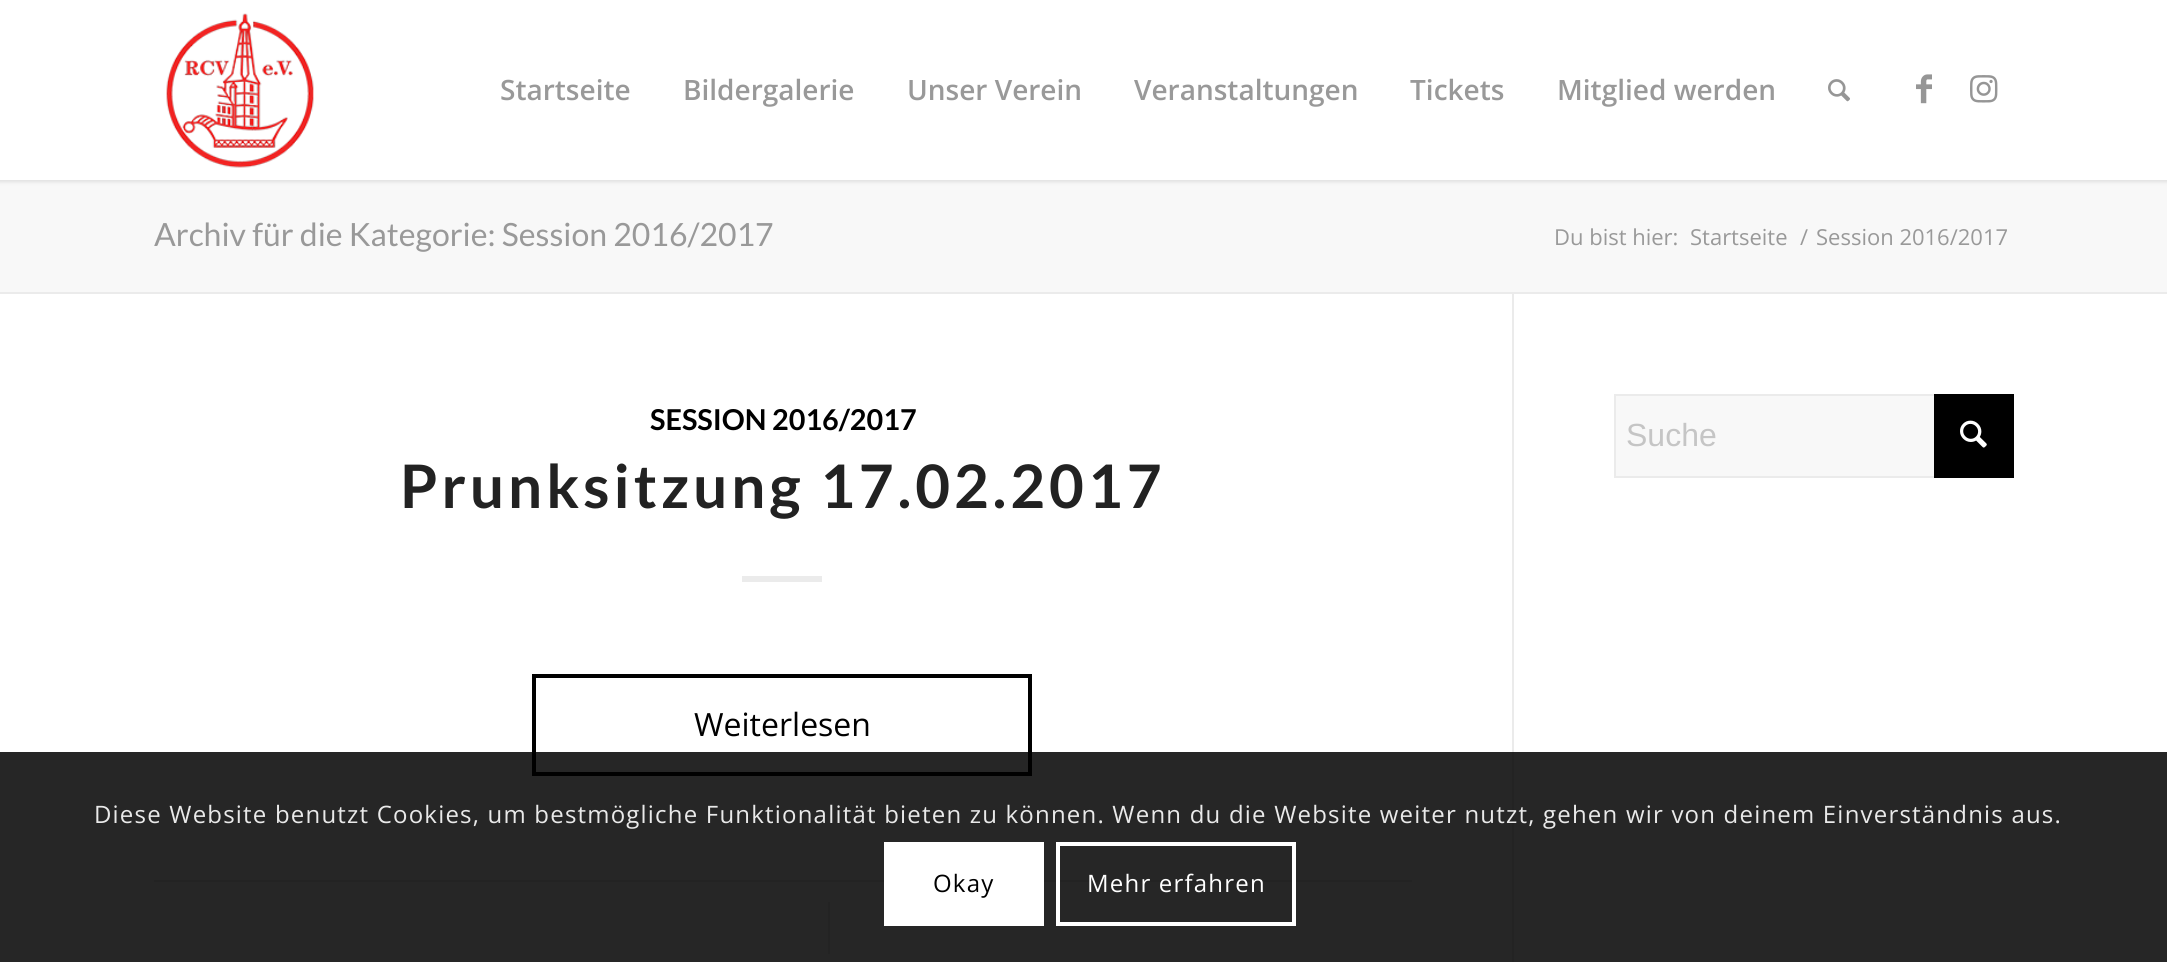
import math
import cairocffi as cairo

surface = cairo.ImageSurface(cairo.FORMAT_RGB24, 2167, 962)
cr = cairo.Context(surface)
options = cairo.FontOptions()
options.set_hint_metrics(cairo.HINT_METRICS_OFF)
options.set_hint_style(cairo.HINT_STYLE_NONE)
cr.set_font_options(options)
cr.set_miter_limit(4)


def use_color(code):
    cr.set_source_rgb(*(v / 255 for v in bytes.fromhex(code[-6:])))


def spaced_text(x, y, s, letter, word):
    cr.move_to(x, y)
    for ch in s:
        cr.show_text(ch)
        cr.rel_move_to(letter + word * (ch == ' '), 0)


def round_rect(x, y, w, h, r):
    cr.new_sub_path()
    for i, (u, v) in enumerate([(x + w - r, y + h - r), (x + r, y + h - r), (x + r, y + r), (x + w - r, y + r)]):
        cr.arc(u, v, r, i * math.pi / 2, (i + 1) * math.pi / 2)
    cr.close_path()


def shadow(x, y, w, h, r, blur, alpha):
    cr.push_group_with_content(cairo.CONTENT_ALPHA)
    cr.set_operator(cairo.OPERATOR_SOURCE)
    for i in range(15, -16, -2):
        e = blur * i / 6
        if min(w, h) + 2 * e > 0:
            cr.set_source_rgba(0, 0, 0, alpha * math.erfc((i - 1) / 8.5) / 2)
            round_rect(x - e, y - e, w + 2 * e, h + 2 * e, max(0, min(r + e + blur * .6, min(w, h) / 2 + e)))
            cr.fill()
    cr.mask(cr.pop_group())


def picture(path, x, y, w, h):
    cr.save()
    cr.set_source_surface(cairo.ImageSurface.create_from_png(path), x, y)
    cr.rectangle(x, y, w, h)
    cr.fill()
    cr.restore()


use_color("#ffffff")
cr.paint()
use_color("#f8f8f8")
cr.rectangle(0, 180, 2167, 112)
cr.fill()
use_color("#000000")
shadow(-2, -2, 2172, 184, 0, 2, 0.1)
use_color("#ffffff")
cr.rectangle(0, 0, 2167, 180)
cr.fill()
picture("img1.png", 166, 13, 148, 155)
cr.select_font_face("Open Sans SemiBold")
cr.set_font_size(28)
use_color("#999999")
cr.move_to(500, 100)
cr.show_text("Startseite")
cr.move_to(683, 100)
cr.show_text("Bildergalerie")
cr.move_to(907, 100)
cr.show_text("Unser Verein")
cr.move_to(1134, 100)
cr.show_text("Veranstaltungen")
cr.move_to(1410, 100)
cr.show_text("Tickets")
cr.move_to(1557, 100)
cr.show_text("Mitglied werden")
picture("img2.png", 1828, 79, 22, 23)
picture("img3.png", 1916, 74, 16, 30)
picture("img4.png", 1970, 75, 28, 28)
cr.select_font_face("Lato")
cr.set_font_size(32)
cr.move_to(154, 246)
cr.show_text("Archiv für die Kategorie: Session 2016/2017")
cr.select_font_face("Open Sans")
cr.set_font_size(22)
cr.move_to(1554, 245)
cr.show_text("Du bist hier:")
cr.move_to(1690, 245)
cr.show_text("Startseite")
cr.move_to(1800, 245)
cr.show_text("/")
cr.move_to(1816, 245)
cr.show_text("Session 2016/2017")
use_color("#ebebeb")
cr.rectangle(0, 292, 2167, 2)
cr.fill()
cr.rectangle(1512, 294, 2, 668)
cr.fill()
cr.select_font_face("Lato", cairo.FONT_SLANT_NORMAL, cairo.FONT_WEIGHT_BOLD)
cr.set_font_size(28.75)
use_color("#000000")
cr.move_to(650, 430)
cr.show_text("SESSION 2016/2017")
cr.set_font_size(60)
use_color("#222222")
spaced_text(400, 508, "Prunksitzung 17.02.2017", 4, 0)
use_color("#ebebeb")
cr.rectangle(742, 576, 80, 6)
cr.fill()
cr.rectangle(534, 676, 496, 98)
use_color("#000000")
cr.set_line_width(4)
cr.stroke()
cr.select_font_face("Open Sans")
cr.set_font_size(32)
cr.move_to(694, 736)
cr.show_text("Weiterlesen")
use_color("#ebebeb")
cr.rectangle(154, 880, 1258, 2)
cr.fill()
cr.rectangle(828, 902, 2, 52)
cr.fill()
use_color("#f8f8f8")
cr.rectangle(1616, 396, 318, 80)
cr.fill()
cr.rectangle(1615, 395, 398, 82)
use_color("#ebebeb")
cr.set_line_width(2)
cr.stroke()
cr.select_font_face("Liberation Sans")
use_color("#c5c5c5")
cr.move_to(1626, 446)
cr.show_text("Suche")
use_color("#000000")
cr.rectangle(1934, 394, 80, 84)
cr.fill()
picture("img5.png", 1960, 420, 27, 28)
cr.set_source_rgba(0, 0, 0, 0.85)
cr.rectangle(0, 752, 2167, 210)
cr.fill()
cr.select_font_face("Open Sans")
cr.set_font_size(24)
use_color("#e9e9e9")
spaced_text(94, 823, "Diese Website benutzt Cookies, um bestmögliche Funktionalität bieten zu können. Wenn du die Website weiter nutzt, gehen wir von deinem Einverständnis aus.", 1.2, 0)
use_color("#ffffff")
cr.rectangle(884, 842, 160, 84)
cr.fill()
use_color("#000000")
spaced_text(933, 892, "Okay", 1.2, 0)
cr.rectangle(1058, 844, 236, 80)
use_color("#ffffff")
cr.set_line_width(4)
cr.stroke()
spaced_text(1087, 892, "Mehr erfahren", 1.2, 0)
surface.write_to_png("result.png")
